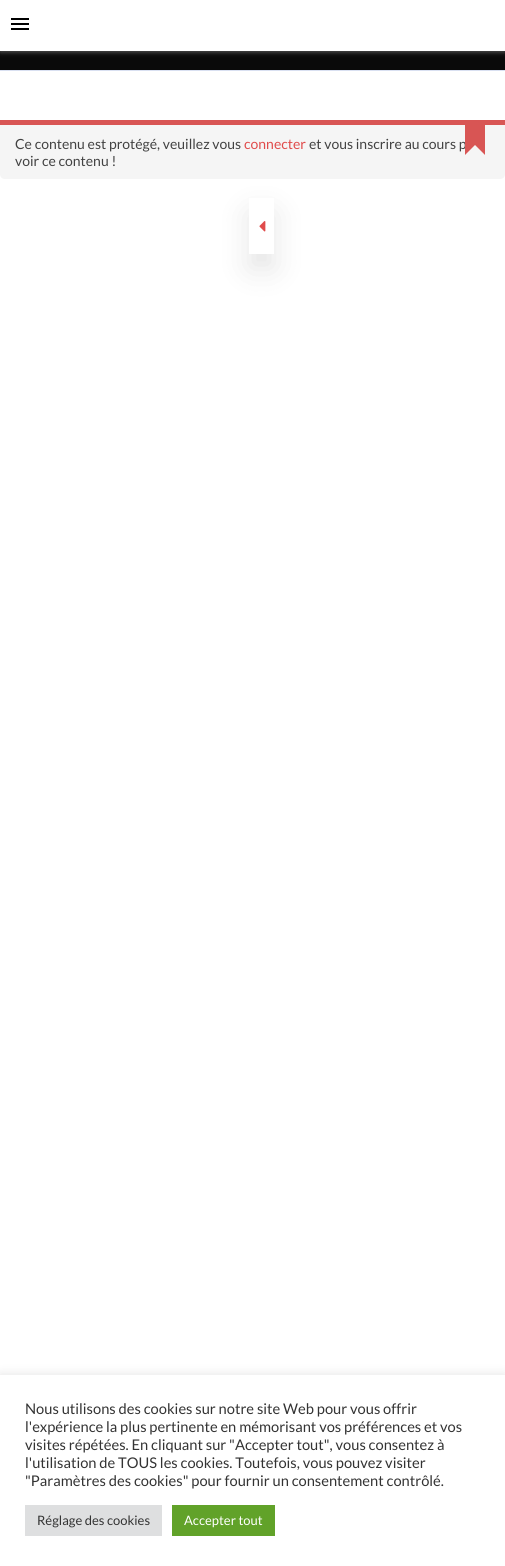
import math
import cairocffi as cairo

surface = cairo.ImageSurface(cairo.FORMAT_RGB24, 505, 1566)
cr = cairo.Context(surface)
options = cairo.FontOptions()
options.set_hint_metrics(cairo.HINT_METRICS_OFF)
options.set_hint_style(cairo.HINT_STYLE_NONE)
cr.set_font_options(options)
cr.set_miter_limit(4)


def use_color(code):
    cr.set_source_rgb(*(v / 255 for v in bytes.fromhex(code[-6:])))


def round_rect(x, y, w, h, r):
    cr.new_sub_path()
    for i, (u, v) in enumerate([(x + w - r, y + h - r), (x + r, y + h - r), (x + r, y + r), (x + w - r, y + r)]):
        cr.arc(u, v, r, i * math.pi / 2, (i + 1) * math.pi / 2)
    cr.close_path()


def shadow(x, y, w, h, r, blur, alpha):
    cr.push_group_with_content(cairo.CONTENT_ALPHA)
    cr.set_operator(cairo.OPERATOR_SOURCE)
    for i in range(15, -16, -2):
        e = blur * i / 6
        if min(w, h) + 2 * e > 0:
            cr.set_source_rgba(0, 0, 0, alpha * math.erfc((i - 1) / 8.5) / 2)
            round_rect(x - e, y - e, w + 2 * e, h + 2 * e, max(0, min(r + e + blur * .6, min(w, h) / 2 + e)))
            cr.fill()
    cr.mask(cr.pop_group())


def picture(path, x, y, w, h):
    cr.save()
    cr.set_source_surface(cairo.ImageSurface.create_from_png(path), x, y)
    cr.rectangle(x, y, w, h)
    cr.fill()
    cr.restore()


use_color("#ffffff")
cr.paint()
use_color("#0a0a0a")
cr.rectangle(0, 51, 505, 19)
cr.fill()
use_color("#bebebe")
shadow(0, 1, 505, 51, 0, 2.5, 0.46)
use_color("#ffffff")
cr.rectangle(0, 0, 505, 51)
cr.fill()
use_color("#000000")
cr.rectangle(11, 18, 18, 2)
cr.fill()
cr.rectangle(11, 23, 18, 2)
cr.fill()
cr.rectangle(11, 28, 18, 2)
cr.fill()
use_color("#d9e0f1")
cr.rectangle(0, 70, 505, 1)
cr.fill()
use_color("#f5f5f5")
cr.new_path()
cr.move_to(0, 120)
cr.line_to(505, 120)
cr.line_to(505, 174)
cr.curve_to(505, 177, 503, 179, 500, 179)
cr.line_to(5, 179)
cr.curve_to(2, 179, 0, 177, 0, 174)
cr.close_path()
cr.fill()
use_color("#d85554")
cr.rectangle(0, 120, 505, 5)
cr.fill()
cr.select_font_face("Lato")
cr.set_font_size(14)
use_color("#424242")
cr.move_to(15, 149)
cr.show_text("Ce contenu est protégé, veuillez vous")
use_color("#e04b4b")
cr.move_to(244, 149)
cr.show_text("connecter")
use_color("#424242")
cr.move_to(309, 149)
cr.show_text("et vous inscrire au cours p")
use_color("#d85554")
cr.rectangle(465, 125, 20, 30)
cr.fill()
use_color("#f5f5f5")
cr.new_path()
cr.move_to(485, 155)
cr.line_to(465, 155)
cr.line_to(475, 145)
cr.close_path()
cr.fill()
use_color("#424242")
cr.move_to(15, 166)
cr.show_text("voir ce contenu !")
cr.save()
cr.set_fill_rule(cairo.FILL_RULE_EVEN_ODD)
cr.new_path()
cr.move_to(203, 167)
cr.line_to(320, 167)
cr.line_to(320, 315)
cr.line_to(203, 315)
cr.close_path()
cr.move_to(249, 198)
cr.line_to(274, 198)
cr.line_to(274, 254)
cr.line_to(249, 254)
cr.close_path()
cr.clip()
use_color("#000000")
shadow(249, 213, 25, 56, 0, 15, 0.1)
cr.restore()
picture("img1.png", 259, 221, 7, 11)
use_color("#acabab")
shadow(0, 1374, 505, 191, 0, 5, 0.3)
use_color("#ffffff")
cr.rectangle(0, 1375, 505, 191)
cr.fill()
cr.set_font_size(14.7)
use_color("#333333")
cr.move_to(25, 1414)
cr.show_text("Nous utilisons des cookies sur notre site Web pour vous offrir")
cr.move_to(25, 1432)
cr.show_text("l'expérience la plus pertinente en mémorisant vos préférences et vos")
cr.move_to(25, 1450)
cr.show_text("visites répétées. En cliquant sur \"Accepter tout\", vous consentez à")
cr.move_to(25, 1468)
cr.show_text("l'utilisation de TOUS les cookies. Toutefois, vous pouvez visiter")
cr.move_to(25, 1486)
cr.show_text("\"Paramètres des cookies\" pour fournir un consentement contrôlé.")
use_color("#dedfe0")
cr.rectangle(25, 1505, 137, 31)
cr.fill()
cr.set_font_size(13)
use_color("#333333")
cr.move_to(37, 1525)
cr.show_text("Réglage des cookies")
use_color("#61a229")
cr.rectangle(172, 1505, 103, 31)
cr.fill()
use_color("#ffffff")
cr.move_to(184, 1525)
cr.show_text("Accepter tout")
surface.write_to_png("result.png")
